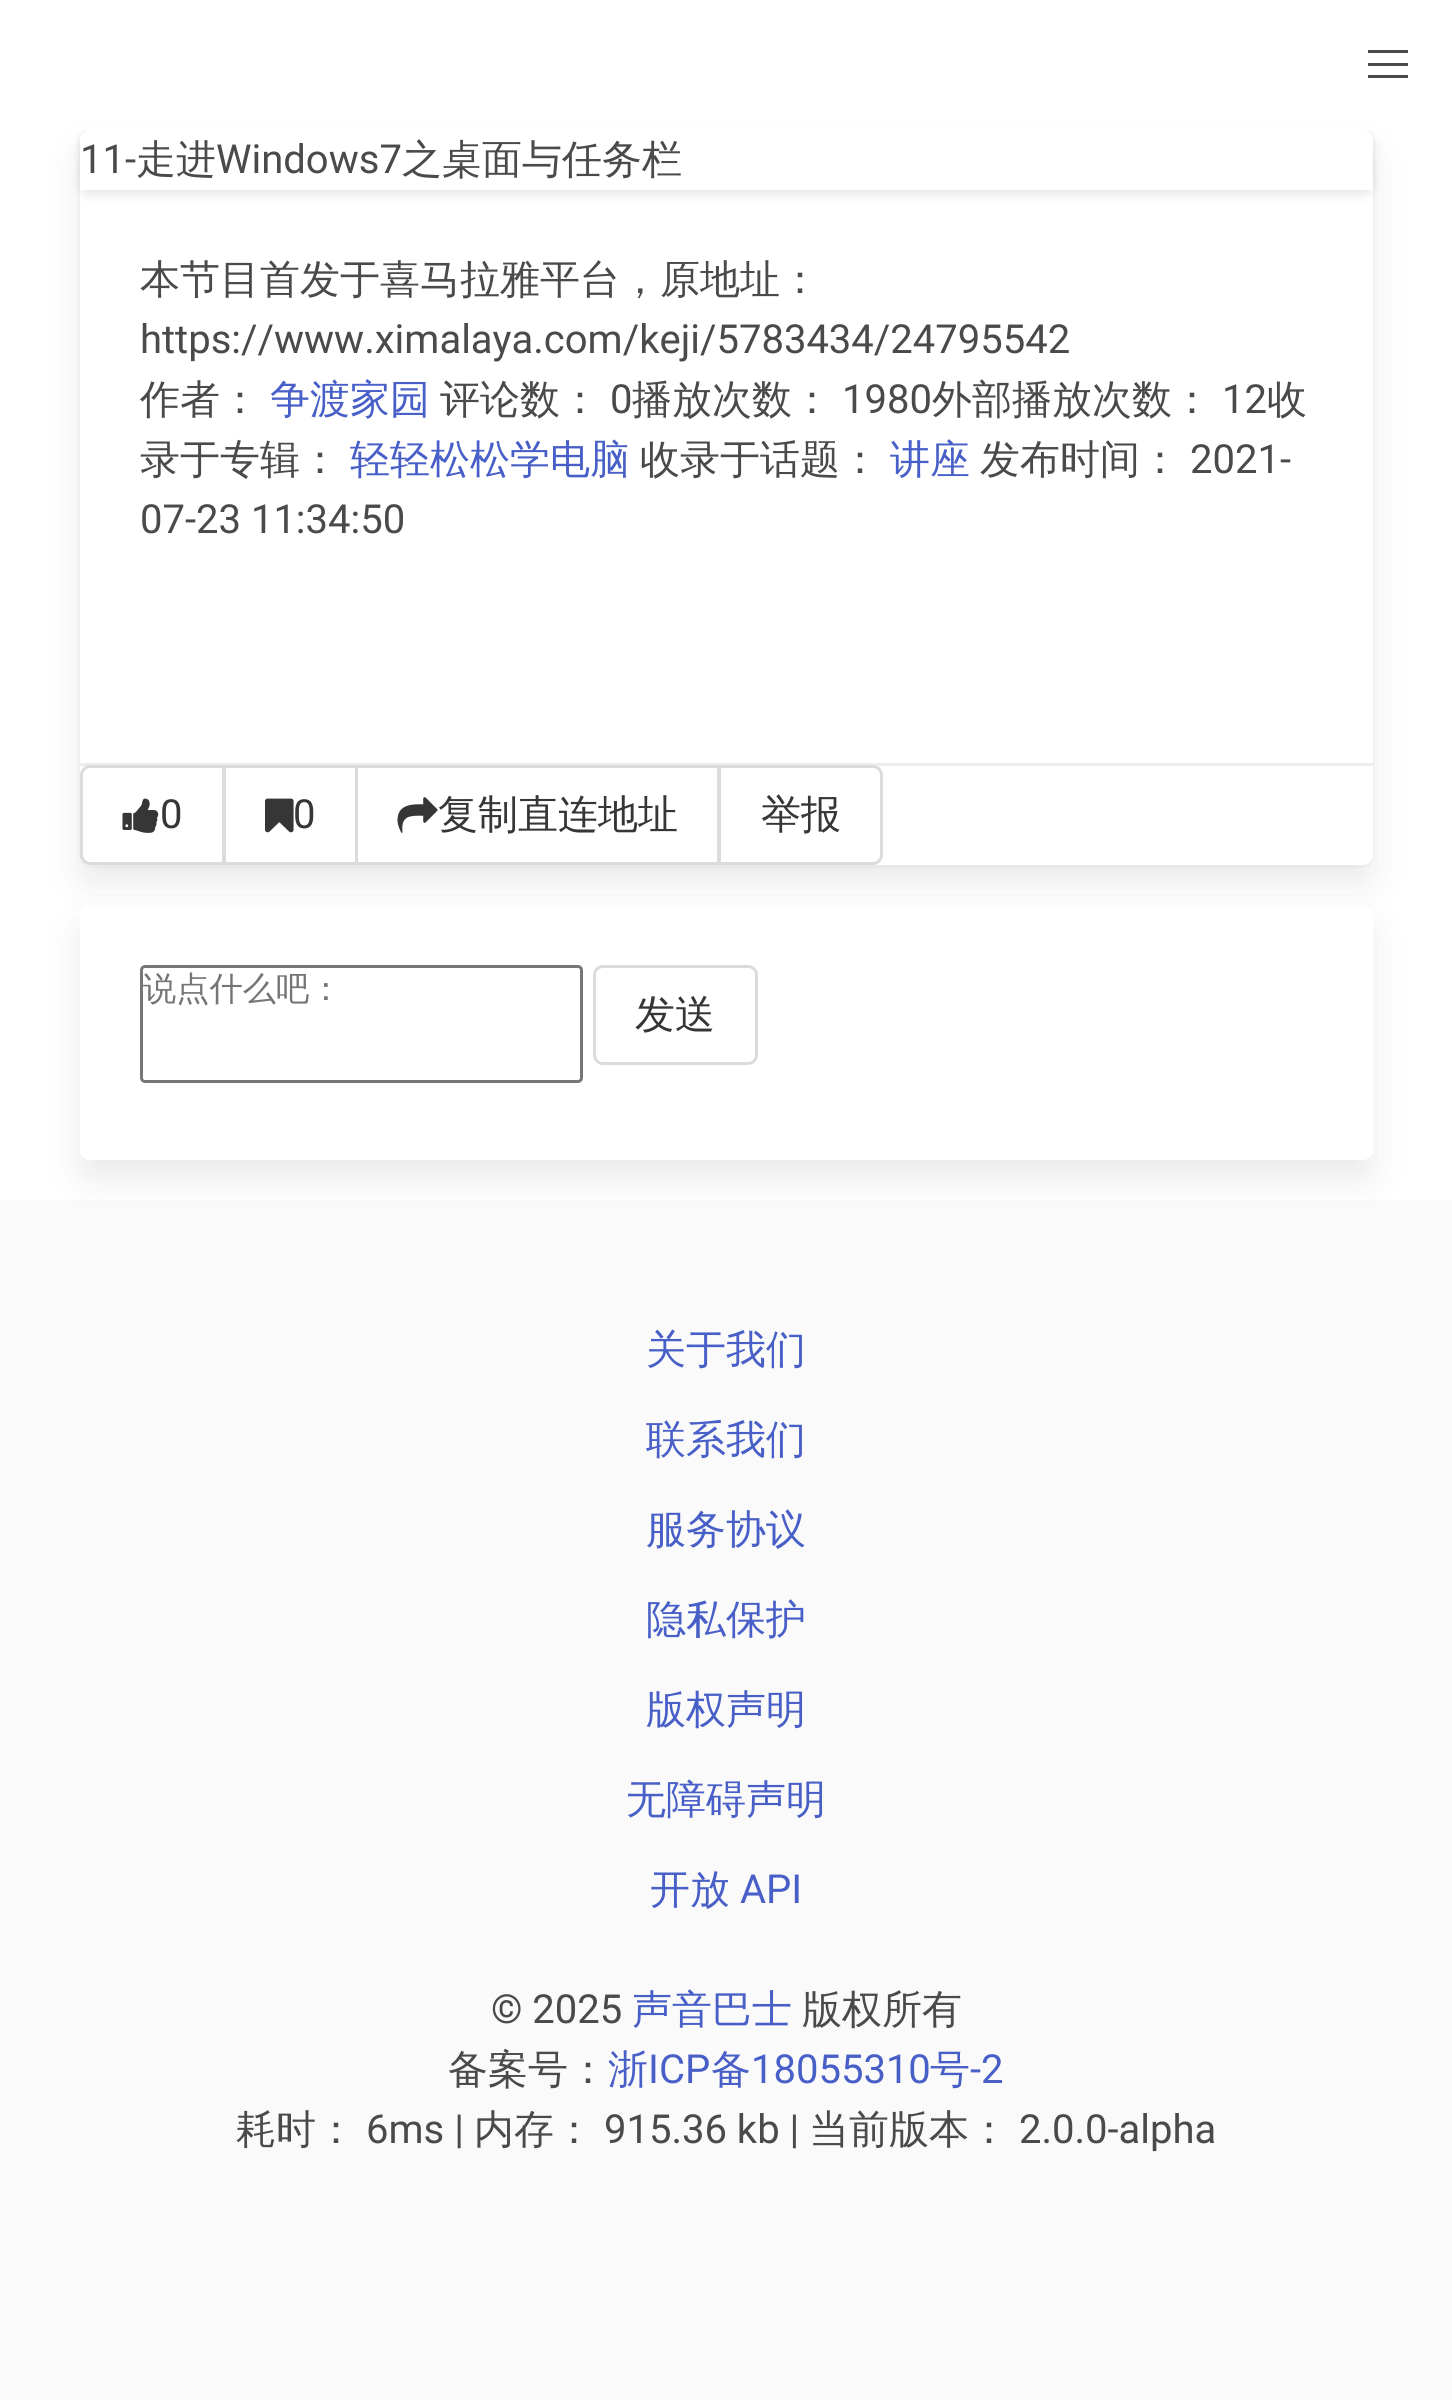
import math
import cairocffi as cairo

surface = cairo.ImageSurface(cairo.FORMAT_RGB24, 1452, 2408)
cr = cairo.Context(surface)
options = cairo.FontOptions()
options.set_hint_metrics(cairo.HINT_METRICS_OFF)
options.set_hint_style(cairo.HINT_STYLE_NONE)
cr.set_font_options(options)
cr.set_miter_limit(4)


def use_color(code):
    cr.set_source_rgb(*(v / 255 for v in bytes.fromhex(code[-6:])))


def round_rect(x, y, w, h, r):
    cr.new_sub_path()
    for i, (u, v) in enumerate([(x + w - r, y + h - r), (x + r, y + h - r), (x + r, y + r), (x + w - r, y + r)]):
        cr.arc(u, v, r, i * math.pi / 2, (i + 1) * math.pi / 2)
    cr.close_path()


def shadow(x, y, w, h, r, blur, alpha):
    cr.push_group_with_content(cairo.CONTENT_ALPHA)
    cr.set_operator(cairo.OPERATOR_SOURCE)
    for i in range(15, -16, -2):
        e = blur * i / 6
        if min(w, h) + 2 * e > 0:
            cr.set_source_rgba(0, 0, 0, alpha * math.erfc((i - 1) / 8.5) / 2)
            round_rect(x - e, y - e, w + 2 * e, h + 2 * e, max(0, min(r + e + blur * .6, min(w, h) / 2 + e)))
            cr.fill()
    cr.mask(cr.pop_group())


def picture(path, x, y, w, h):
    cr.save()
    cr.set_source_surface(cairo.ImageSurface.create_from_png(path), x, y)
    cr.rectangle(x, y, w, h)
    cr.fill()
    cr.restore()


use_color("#ffffff")
cr.paint()
round_rect(79.5, 129.5, 1294, 737, 11.5)
use_color("#fafafa")
cr.set_line_width(3)
cr.stroke()
use_color("#0a0a0a")
shadow(85, 155, 1283, 725, 5, 20, 0.1)
use_color("#ffffff")
round_rect(80, 130, 1293, 735, 10)
cr.fill()
cr.save()
cr.set_fill_rule(cairo.FILL_RULE_EVEN_ODD)
cr.new_path()
cr.move_to(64, 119)
cr.line_to(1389, 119)
cr.line_to(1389, 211)
cr.line_to(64, 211)
cr.close_path()
cr.move_to(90, 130)
cr.line_to(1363, 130)
cr.curve_to(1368.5, 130, 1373, 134.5, 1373, 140)
cr.line_to(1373, 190)
cr.line_to(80, 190)
cr.line_to(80, 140)
cr.curve_to(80, 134.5, 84.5, 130, 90, 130)
cr.close_path()
cr.clip()
use_color("#0a0a0a")
shadow(80, 135, 1293, 60, 10, 5, 0.1)
cr.restore()
cr.rectangle(83, 126, 1287, 4)
cr.fill()
use_color("#4a4a4a")
cr.rectangle(1368, 50, 40, 3)
cr.fill()
cr.rectangle(1368, 63, 40, 3)
cr.fill()
cr.rectangle(1368, 75, 40, 3)
cr.fill()
cr.select_font_face("Roboto")
cr.set_font_size(40)
cr.move_to(80, 173)
cr.show_text("11-")
cr.select_font_face("WenQuanYi Zen Hei Medium")
cr.move_to(136, 173)
cr.show_text("走进")
cr.select_font_face("Roboto")
cr.move_to(216, 173)
cr.show_text("Windows7")
cr.select_font_face("WenQuanYi Zen Hei Medium")
cr.move_to(402, 173)
cr.show_text("之桌面与任务栏")
cr.move_to(140, 293)
cr.show_text("本节目首发于喜马拉雅平台，原地址：")
cr.select_font_face("Roboto")
cr.move_to(140, 353)
cr.show_text("https://www.ximalaya.com/keji/5783434/24795542")
cr.select_font_face("WenQuanYi Zen Hei Medium")
cr.move_to(140, 413)
cr.show_text("作者：")
use_color("#485fc7")
cr.move_to(270, 413)
cr.show_text("争渡家园")
use_color("#4a4a4a")
cr.move_to(440, 413)
cr.show_text("评论数：")
cr.select_font_face("Roboto")
cr.move_to(610, 413)
cr.show_text("0")
cr.select_font_face("WenQuanYi Zen Hei Medium")
cr.move_to(632, 413)
cr.show_text("播放次数：")
cr.select_font_face("Roboto")
cr.move_to(842, 413)
cr.show_text("1980")
cr.select_font_face("WenQuanYi Zen Hei Medium")
cr.move_to(932, 413)
cr.show_text("外部播放次数：")
cr.select_font_face("Roboto")
cr.move_to(1222, 413)
cr.show_text("12")
cr.select_font_face("WenQuanYi Zen Hei Medium")
cr.move_to(1267, 413)
cr.show_text("收")
cr.move_to(140, 473)
cr.show_text("录于专辑：")
use_color("#485fc7")
cr.move_to(350, 473)
cr.show_text("轻轻松松学电脑")
use_color("#4a4a4a")
cr.move_to(640, 473)
cr.show_text("收录于话题：")
use_color("#485fc7")
cr.move_to(890, 473)
cr.show_text("讲座")
use_color("#4a4a4a")
cr.move_to(980, 473)
cr.show_text("发布时间：")
cr.select_font_face("Roboto")
cr.move_to(1190, 473)
cr.show_text("2021-")
cr.move_to(140, 533)
cr.show_text("07-23 11:34:50")
use_color("#ededed")
cr.rectangle(80, 763, 1293, 3)
cr.fill()
use_color("#ffffff")
cr.new_path()
cr.move_to(90, 766.5)
cr.line_to(223.5, 766.5)
cr.line_to(223.5, 863.5)
cr.line_to(90, 863.5)
cr.curve_to(85.5, 863.5, 81.5, 859.5, 81.5, 855)
cr.line_to(81.5, 775)
cr.curve_to(81.5, 770.5, 85.5, 766.5, 90, 766.5)
cr.close_path()
cr.fill_preserve()
use_color("#dbdbdb")
cr.stroke()
picture("img1.png", 122, 798, 37, 35)
use_color("#363636")
cr.move_to(160, 828)
cr.show_text("0")
cr.rectangle(224.5, 766.5, 132, 97)
use_color("#dbdbdb")
cr.stroke()
picture("img2.png", 265, 798, 29, 35)
use_color("#363636")
cr.move_to(293, 828)
cr.show_text("0")
cr.rectangle(356.5, 766.5, 362, 97)
use_color("#dbdbdb")
cr.stroke()
picture("img3.png", 397, 797, 41, 36)
cr.select_font_face("WenQuanYi Zen Hei Medium")
use_color("#363636")
cr.move_to(438, 828)
cr.show_text("复制直连地址")
use_color("#ffffff")
cr.new_path()
cr.move_to(719.5, 766.5)
cr.line_to(873, 766.5)
cr.curve_to(877.5, 766.5, 881.5, 770.5, 881.5, 775)
cr.line_to(881.5, 855)
cr.curve_to(881.5, 859.5, 877.5, 863.5, 873, 863.5)
cr.line_to(719.5, 863.5)
cr.close_path()
cr.fill_preserve()
use_color("#dbdbdb")
cr.stroke()
use_color("#363636")
cr.move_to(761, 828)
cr.show_text("举报")
use_color("#fafafa")
cr.rectangle(0, 1200, 1452, 1200)
cr.fill()
use_color("#0a0a0a")
shadow(85, 930, 1283, 245, 5, 20, 0.1)
use_color("#ffffff")
round_rect(80, 905, 1293, 255, 10)
cr.fill()
round_rect(141.5, 966.5, 440, 115, 3.5)
use_color("#767676")
cr.stroke()
cr.save()
cr.rectangle(143, 968, 437, 112)
cr.clip()
cr.set_font_size(33.25)
use_color("#757575")
cr.move_to(143, 1000)
cr.show_text("说点什么吧：")
cr.restore()
round_rect(594.5, 966.5, 162, 97, 8.5)
use_color("#dbdbdb")
cr.stroke()
use_color("#363636")
cr.move_to(635, 1028)
cr.show_text("发送")
use_color("#485fc7")
cr.move_to(646, 1363)
cr.show_text("关于我们")
cr.move_to(646, 1453)
cr.show_text("联系我们")
cr.move_to(646, 1543)
cr.show_text("服务协议")
cr.move_to(646, 1633)
cr.show_text("隐私保护")
cr.move_to(646, 1723)
cr.show_text("版权声明")
cr.move_to(626, 1813)
cr.show_text("无障碍声明")
cr.move_to(650, 1903)
cr.show_text("开放")
cr.select_font_face("Roboto")
cr.move_to(740, 1903)
cr.show_text("API")
use_color("#4a4a4a")
cr.move_to(491, 2023)
cr.show_text("© 2025")
cr.select_font_face("WenQuanYi Zen Hei Medium")
use_color("#485fc7")
cr.move_to(632, 2023)
cr.show_text("声音巴士")
use_color("#4a4a4a")
cr.move_to(802, 2023)
cr.show_text("版权所有")
cr.move_to(448, 2083)
cr.show_text("备案号：")
use_color("#485fc7")
cr.move_to(608, 2083)
cr.show_text("浙")
cr.select_font_face("Roboto")
cr.move_to(648, 2083)
cr.show_text("ICP")
cr.select_font_face("WenQuanYi Zen Hei Medium")
cr.move_to(711, 2083)
cr.show_text("备")
cr.select_font_face("Roboto")
cr.move_to(751, 2083)
cr.show_text("18055310")
cr.select_font_face("WenQuanYi Zen Hei Medium")
cr.move_to(930, 2083)
cr.show_text("号")
cr.select_font_face("Roboto")
cr.move_to(970, 2083)
cr.show_text("-2")
cr.select_font_face("WenQuanYi Zen Hei Medium")
use_color("#4a4a4a")
cr.move_to(236, 2143)
cr.show_text("耗时：")
cr.select_font_face("Roboto")
cr.move_to(366, 2143)
cr.show_text("6ms |")
cr.select_font_face("WenQuanYi Zen Hei Medium")
cr.move_to(474, 2143)
cr.show_text("内存：")
cr.select_font_face("Roboto")
cr.move_to(604, 2143)
cr.show_text("915.36 kb |")
cr.select_font_face("WenQuanYi Zen Hei Medium")
cr.move_to(809, 2143)
cr.show_text("当前版本：")
cr.select_font_face("Roboto")
cr.move_to(1019, 2143)
cr.show_text("2.0.0-alpha")
surface.write_to_png("result.png")
